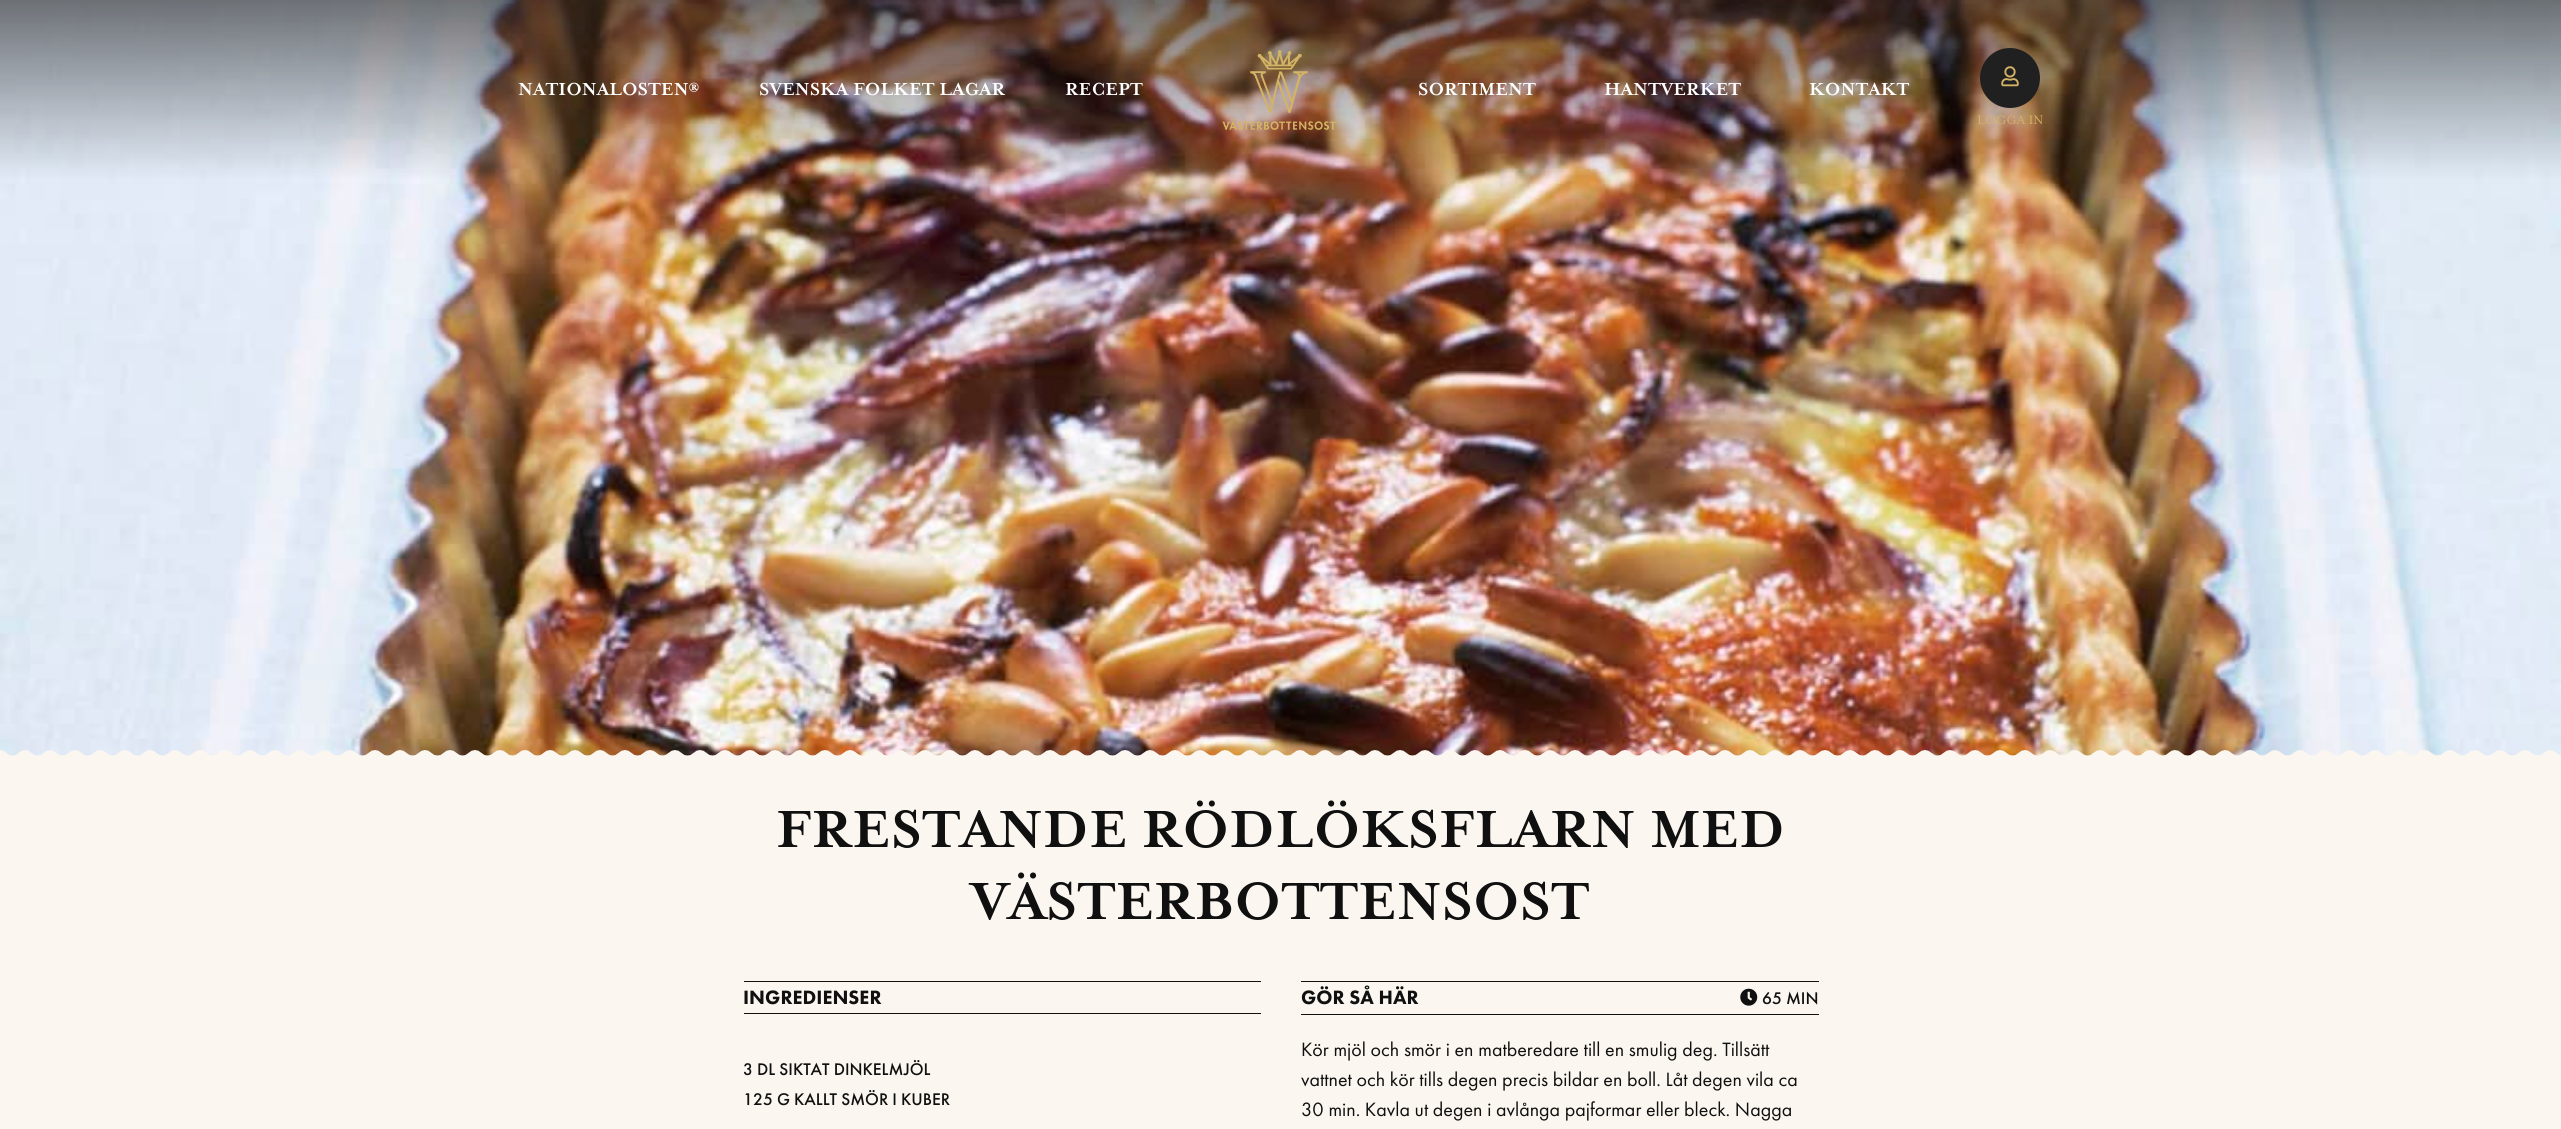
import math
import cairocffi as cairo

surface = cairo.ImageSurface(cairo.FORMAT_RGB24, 2561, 1129)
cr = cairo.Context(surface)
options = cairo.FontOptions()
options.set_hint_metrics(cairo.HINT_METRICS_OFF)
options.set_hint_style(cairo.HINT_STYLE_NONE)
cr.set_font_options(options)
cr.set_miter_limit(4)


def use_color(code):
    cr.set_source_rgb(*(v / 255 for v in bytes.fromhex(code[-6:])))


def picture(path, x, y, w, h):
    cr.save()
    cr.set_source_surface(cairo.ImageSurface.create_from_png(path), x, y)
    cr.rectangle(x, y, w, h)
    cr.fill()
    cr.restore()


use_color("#fbf7f0")
cr.paint()
picture("img3.png", 0, 0, 2561, 756)
cr.select_font_face("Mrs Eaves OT", cairo.FONT_SLANT_NORMAL, cairo.FONT_WEIGHT_BOLD)
cr.set_font_size(20)
use_color("#ffffff")
cr.move_to(518, 95)
cr.show_text("NATIONALOSTEN®")
cr.move_to(759, 95)
cr.show_text("SVENSKA FOLKET LAGAR")
cr.move_to(1065, 95)
cr.show_text("RECEPT")
picture("img1.png", 1222, 50, 117, 80)
cr.move_to(1418, 95)
cr.show_text("SORTIMENT")
cr.move_to(1604, 95)
cr.show_text("HANTVERKET")
cr.move_to(1809, 95)
cr.show_text("KONTAKT")
use_color("#202020")
cr.new_path()
cr.arc(2010, 78, 30, 0, 2 * math.pi)
cr.fill()
picture("img2.png", 2001, 66, 18, 21)
cr.select_font_face("Mrs Eaves OT")
cr.set_font_size(14)
use_color("#d3b265")
cr.move_to(1977, 124)
cr.show_text("LOGGA IN")
picture("img4.png", 0, 750, 2561, 8)
cr.select_font_face("Mrs Eaves OT", cairo.FONT_SLANT_NORMAL, cairo.FONT_WEIGHT_BOLD)
cr.set_font_size(60)
use_color("#101010")
cr.move_to(776, 847)
cr.show_text("FRESTANDE RÖDLÖKSFLARN MED")
cr.move_to(971, 919)
cr.show_text("VÄSTERBOTTENSOST")
cr.rectangle(744, 981, 517, 1)
cr.fill()
cr.rectangle(744, 1013, 517, 1)
cr.fill()
cr.select_font_face("Futura PT Black")
cr.set_font_size(20)
cr.move_to(743, 1004)
cr.show_text("INGREDIENSER")
cr.select_font_face("Futura PT Medium")
cr.set_font_size(17.5)
cr.move_to(743, 1075)
cr.show_text("3 DL SIKTAT DINKELMJÖL")
cr.move_to(743, 1105)
cr.show_text("125 G KALLT SMÖR I KUBER")
cr.rectangle(1301, 981, 518, 1)
cr.fill()
cr.rectangle(1301, 1014, 518, 1)
cr.fill()
cr.select_font_face("Futura PT Black")
cr.set_font_size(20)
cr.move_to(1301, 1004)
cr.show_text("GÖR SÅ HÄR")
picture("img5.png", 1740, 988, 18, 18)
cr.select_font_face("Futura PT Medium")
cr.set_font_size(17.5)
cr.move_to(1762, 1004)
cr.show_text("65 MIN")
cr.select_font_face("Futura PT")
cr.set_font_size(20)
cr.move_to(1301, 1056)
cr.show_text("Kör mjöl och smör i en matberedare till en smulig deg. Tillsätt")
cr.move_to(1301, 1086)
cr.show_text("vattnet och kör tills degen precis bildar en boll. Låt degen vila ca")
cr.move_to(1301, 1116)
cr.show_text("30 min. Kavla ut degen i avlånga pajformar eller bleck. Nagga")
surface.write_to_png("result.png")
